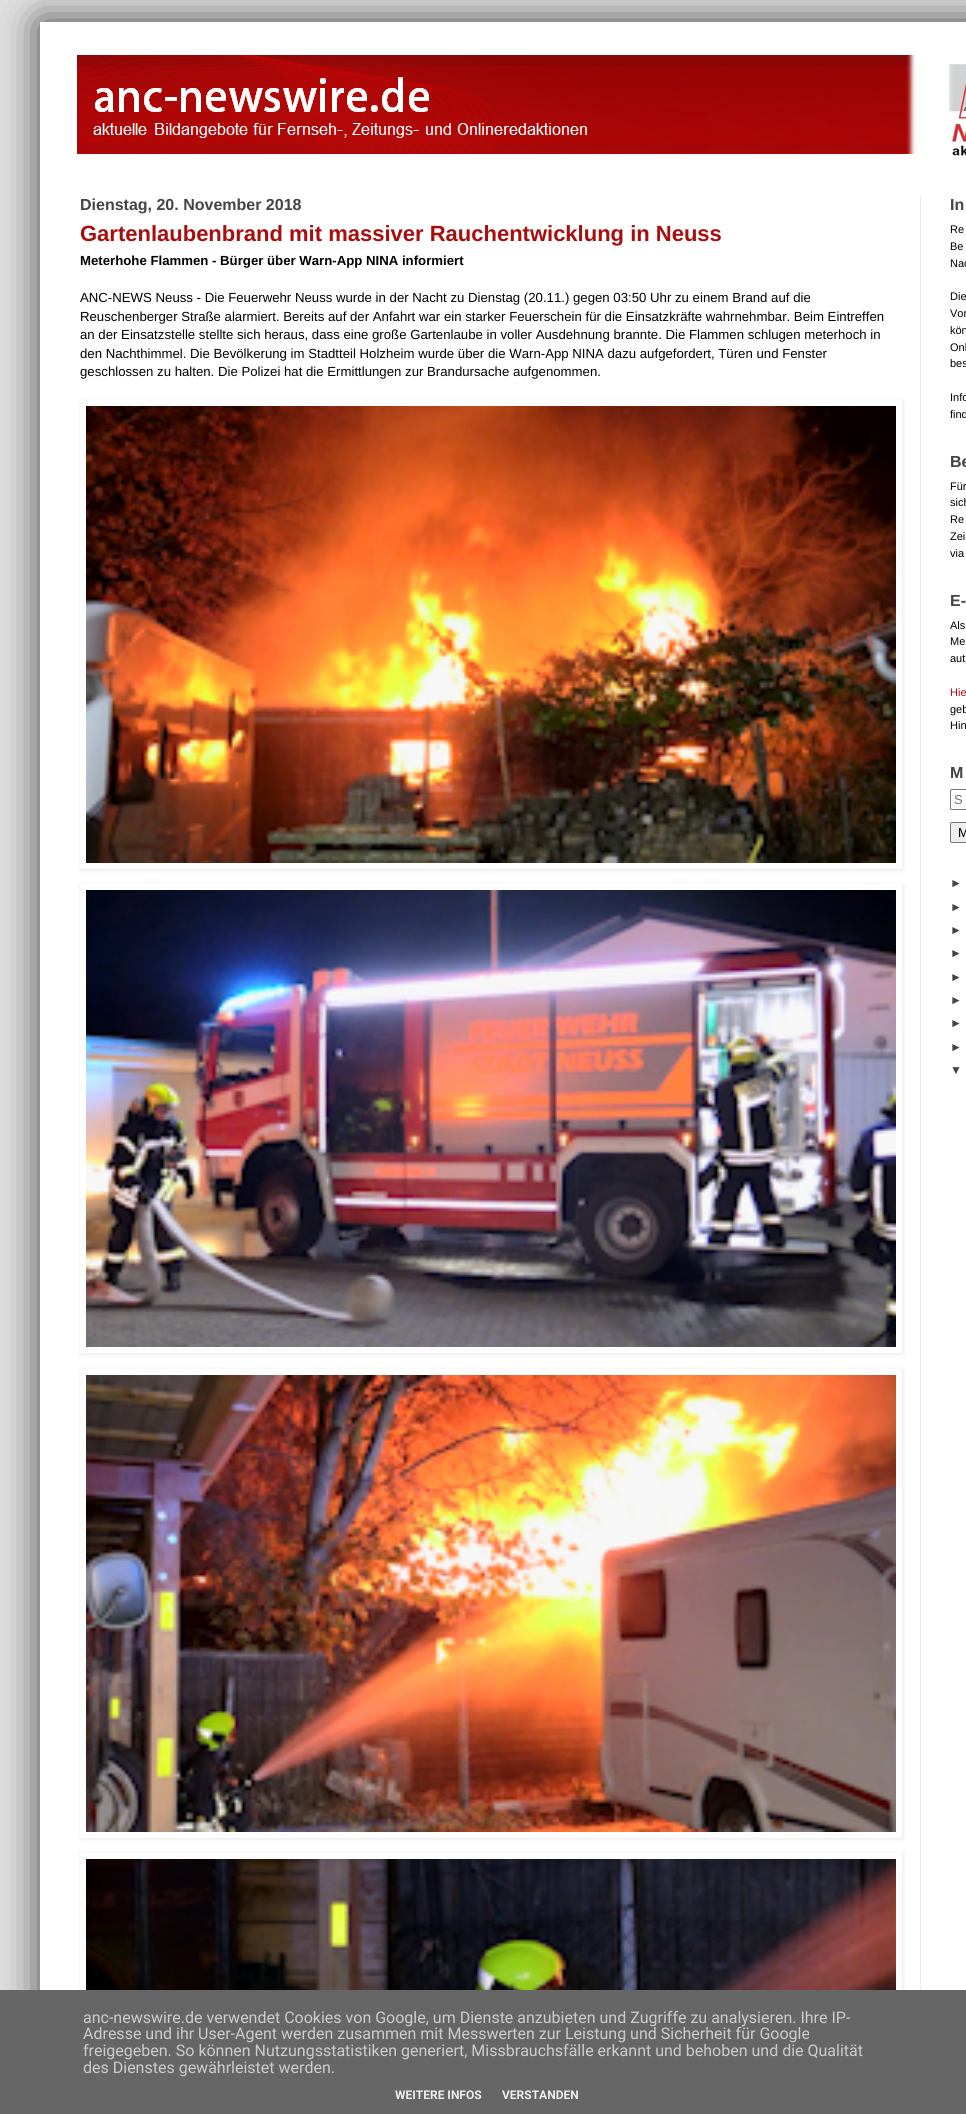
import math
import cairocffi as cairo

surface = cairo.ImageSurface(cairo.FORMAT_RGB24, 966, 2114)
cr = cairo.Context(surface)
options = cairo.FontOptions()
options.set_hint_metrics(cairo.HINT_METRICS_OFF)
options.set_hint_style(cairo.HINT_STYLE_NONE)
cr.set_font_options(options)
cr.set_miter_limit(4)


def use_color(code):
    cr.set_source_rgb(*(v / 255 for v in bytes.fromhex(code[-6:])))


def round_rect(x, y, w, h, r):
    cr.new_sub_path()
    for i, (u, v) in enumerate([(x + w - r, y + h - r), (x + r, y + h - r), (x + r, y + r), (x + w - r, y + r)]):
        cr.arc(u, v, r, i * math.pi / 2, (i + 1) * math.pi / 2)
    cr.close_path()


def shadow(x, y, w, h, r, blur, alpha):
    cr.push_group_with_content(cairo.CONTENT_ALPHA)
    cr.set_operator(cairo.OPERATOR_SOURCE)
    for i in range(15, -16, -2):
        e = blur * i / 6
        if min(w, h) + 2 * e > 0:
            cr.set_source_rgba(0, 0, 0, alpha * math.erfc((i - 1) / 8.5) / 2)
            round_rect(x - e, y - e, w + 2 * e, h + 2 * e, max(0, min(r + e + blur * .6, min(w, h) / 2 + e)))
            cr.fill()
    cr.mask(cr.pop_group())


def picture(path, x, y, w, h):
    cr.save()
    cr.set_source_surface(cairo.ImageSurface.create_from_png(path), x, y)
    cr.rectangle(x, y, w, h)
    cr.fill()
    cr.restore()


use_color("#e0e0e0")
cr.paint()
use_color("#000000")
shadow(40, 22, 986, 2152, 0, 20, 0.7)
use_color("#ffffff")
cr.rectangle(40, 22, 926, 1968)
cr.fill()
picture("img1.png", 75, 55, 891, 101)
use_color("#eaeaea")
cr.rectangle(920, 196, 1, 1794)
cr.fill()
cr.select_font_face("Liberation Sans", cairo.FONT_SLANT_NORMAL, cairo.FONT_WEIGHT_BOLD)
cr.set_font_size(16)
use_color("#444444")
cr.move_to(80, 210)
cr.show_text("Dienstag, 20. November 2018")
cr.set_font_size(22)
use_color("#a80e0e")
cr.move_to(80, 241)
cr.show_text("Gartenlaubenbrand mit massiver Rauchentwicklung in Neuss")
cr.set_font_size(13.2)
use_color("#000000")
cr.move_to(80, 265)
cr.show_text("Meterhohe Flammen - Bürger über Warn-App NINA informiert")
cr.select_font_face("Liberation Sans")
cr.move_to(80, 302)
cr.show_text("ANC-NEWS Neuss - Die Feuerwehr Neuss wurde in der Nacht zu Dienstag (20.11.) gegen 03:50 Uhr zu einem Brand auf die")
cr.move_to(80, 321)
cr.show_text("Reuschenberger Straße alarmiert. Bereits auf der Anfahrt war ein starker Feuerschein für die Einsatzkräfte wahrnehmbar. Beim Eintreffen")
cr.move_to(80, 339)
cr.show_text("an der Einsatzstelle stellte sich heraus, dass eine große Gartenlaube in voller Ausdehnung brannte. Die Flammen schlugen meterhoch in")
cr.move_to(80, 358)
cr.show_text("den Nachthimmel. Die Bevölkerung im Stadtteil Holzheim wurde über die Warn-App NINA dazu aufgefordert, Türen und Fenster")
cr.move_to(80, 376)
cr.show_text("geschlossen zu halten. Die Polizei hat die Ermittlungen zur Brandursache aufgenommen.")
cr.save()
cr.set_fill_rule(cairo.FILL_RULE_EVEN_ODD)
cr.new_path()
cr.move_to(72, 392)
cr.line_to(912, 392)
cr.line_to(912, 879)
cr.line_to(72, 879)
cr.close_path()
cr.move_to(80, 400)
cr.line_to(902, 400)
cr.line_to(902, 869)
cr.line_to(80, 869)
cr.close_path()
cr.clip()
use_color("#000000")
shadow(81, 401, 822, 469, 0, 2.5, 0.1)
cr.restore()
picture("img2.png", 86, 406, 810, 457)
cr.save()
cr.set_fill_rule(cairo.FILL_RULE_EVEN_ODD)
cr.new_path()
cr.move_to(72, 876)
cr.line_to(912, 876)
cr.line_to(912, 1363)
cr.line_to(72, 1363)
cr.close_path()
cr.move_to(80, 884)
cr.line_to(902, 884)
cr.line_to(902, 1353)
cr.line_to(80, 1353)
cr.close_path()
cr.clip()
use_color("#000000")
shadow(81, 885, 822, 469, 0, 2.5, 0.1)
cr.restore()
picture("img3.png", 86, 890, 810, 457)
cr.save()
cr.set_fill_rule(cairo.FILL_RULE_EVEN_ODD)
cr.new_path()
cr.move_to(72, 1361)
cr.line_to(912, 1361)
cr.line_to(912, 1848)
cr.line_to(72, 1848)
cr.close_path()
cr.move_to(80, 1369)
cr.line_to(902, 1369)
cr.line_to(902, 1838)
cr.line_to(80, 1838)
cr.close_path()
cr.clip()
use_color("#000000")
shadow(81, 1370, 822, 469, 0, 2.5, 0.1)
cr.restore()
picture("img4.png", 86, 1375, 810, 457)
cr.save()
cr.set_fill_rule(cairo.FILL_RULE_EVEN_ODD)
cr.new_path()
cr.move_to(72, 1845)
cr.line_to(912, 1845)
cr.line_to(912, 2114)
cr.line_to(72, 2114)
cr.close_path()
cr.move_to(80, 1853)
cr.line_to(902, 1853)
cr.line_to(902, 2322)
cr.line_to(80, 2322)
cr.close_path()
cr.clip()
use_color("#000000")
shadow(81, 1854, 822, 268, 0, 2.5, 0.1)
cr.restore()
picture("img5.png", 86, 1859, 810, 131)
cr.select_font_face("Liberation Sans", cairo.FONT_SLANT_NORMAL, cairo.FONT_WEIGHT_BOLD)
cr.set_font_size(16)
use_color("#444444")
cr.move_to(950, 210)
cr.show_text("In")
cr.select_font_face("Liberation Sans")
cr.set_font_size(11)
use_color("#000000")
cr.move_to(950, 233)
cr.show_text("Re")
cr.move_to(950, 250)
cr.show_text("Be")
cr.move_to(950, 267)
cr.show_text("Nac")
cr.move_to(950, 300)
cr.show_text("Die")
cr.move_to(950, 317)
cr.show_text("Vor")
cr.move_to(950, 334)
cr.show_text("kön")
cr.move_to(950, 351)
cr.show_text("Onl")
cr.move_to(950, 367)
cr.show_text("bes")
cr.move_to(950, 401)
cr.show_text("Info")
cr.move_to(950, 418)
cr.show_text("find")
cr.select_font_face("Liberation Sans", cairo.FONT_SLANT_NORMAL, cairo.FONT_WEIGHT_BOLD)
cr.set_font_size(16)
use_color("#444444")
cr.move_to(950, 467)
cr.show_text("Be")
cr.select_font_face("Liberation Sans")
cr.set_font_size(11)
use_color("#000000")
cr.move_to(950, 490)
cr.show_text("Für")
cr.move_to(950, 506)
cr.show_text("sich")
cr.move_to(950, 523)
cr.show_text("Re")
cr.move_to(950, 540)
cr.show_text("Zei")
cr.move_to(950, 557)
cr.show_text("via")
cr.select_font_face("Liberation Sans", cairo.FONT_SLANT_NORMAL, cairo.FONT_WEIGHT_BOLD)
cr.set_font_size(16)
use_color("#444444")
cr.move_to(950, 606)
cr.show_text("E-")
cr.select_font_face("Liberation Sans")
cr.set_font_size(11)
use_color("#000000")
cr.move_to(950, 629)
cr.show_text("Als")
cr.move_to(950, 645)
cr.show_text("Me")
cr.move_to(950, 662)
cr.show_text("aut")
use_color("#a80e0e")
cr.move_to(950, 696)
cr.show_text("Hie")
use_color("#000000")
cr.move_to(950, 713)
cr.show_text("geb")
cr.move_to(950, 729)
cr.show_text("Hin")
cr.select_font_face("Liberation Sans", cairo.FONT_SLANT_NORMAL, cairo.FONT_WEIGHT_BOLD)
cr.set_font_size(16)
use_color("#444444")
cr.move_to(950, 778)
cr.show_text("M")
round_rect(950.5, 789.5, 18, 20, 1.5)
use_color("#767676")
cr.set_line_width(1)
cr.stroke()
cr.select_font_face("Liberation Sans")
cr.set_font_size(13)
use_color("#757575")
cr.move_to(954, 804)
cr.show_text("S")
use_color("#efefef")
round_rect(950.5, 822.5, 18, 20, 1.5)
cr.fill_preserve()
use_color("#767676")
cr.stroke()
use_color("#000000")
cr.move_to(958, 837)
cr.show_text("M")
cr.set_font_size(12)
use_color("#444444")
cr.move_to(950, 887)
cr.show_text("►")
cr.move_to(950, 911)
cr.show_text("►")
cr.move_to(950, 934)
cr.show_text("►")
cr.move_to(950, 957)
cr.show_text("►")
cr.move_to(950, 981)
cr.show_text("►")
cr.move_to(950, 1004)
cr.show_text("►")
cr.move_to(950, 1027)
cr.show_text("►")
cr.move_to(950, 1051)
cr.show_text("►")
cr.move_to(950, 1074)
cr.show_text("▼")
use_color("#666666")
cr.rectangle(0, 1990, 966, 124)
cr.fill()
cr.select_font_face("Roboto")
cr.set_font_size(16)
use_color("#cccccc")
cr.move_to(83, 2023)
cr.show_text("anc-newswire.de verwendet Cookies von Google, um Dienste anzubieten und Zugriffe zu analysieren. Ihre IP-")
cr.move_to(83, 2039)
cr.show_text("Adresse und ihr User-Agent werden zusammen mit Messwerten zur Leistung und Sicherheit für Google")
cr.move_to(83, 2056)
cr.show_text("freigegeben. So können Nutzungsstatistiken generiert, Missbrauchsfälle erkannt und behoben und die Qualität")
cr.move_to(83, 2073)
cr.show_text("des Dienstes gewährleistet werden.")
cr.select_font_face("Roboto", cairo.FONT_SLANT_NORMAL, cairo.FONT_WEIGHT_BOLD)
cr.set_font_size(12)
use_color("#eeeeee")
cr.move_to(395, 2099)
cr.show_text("WEITERE INFOS")
cr.move_to(502, 2099)
cr.show_text("VERSTANDEN")
surface.write_to_png("result.png")
